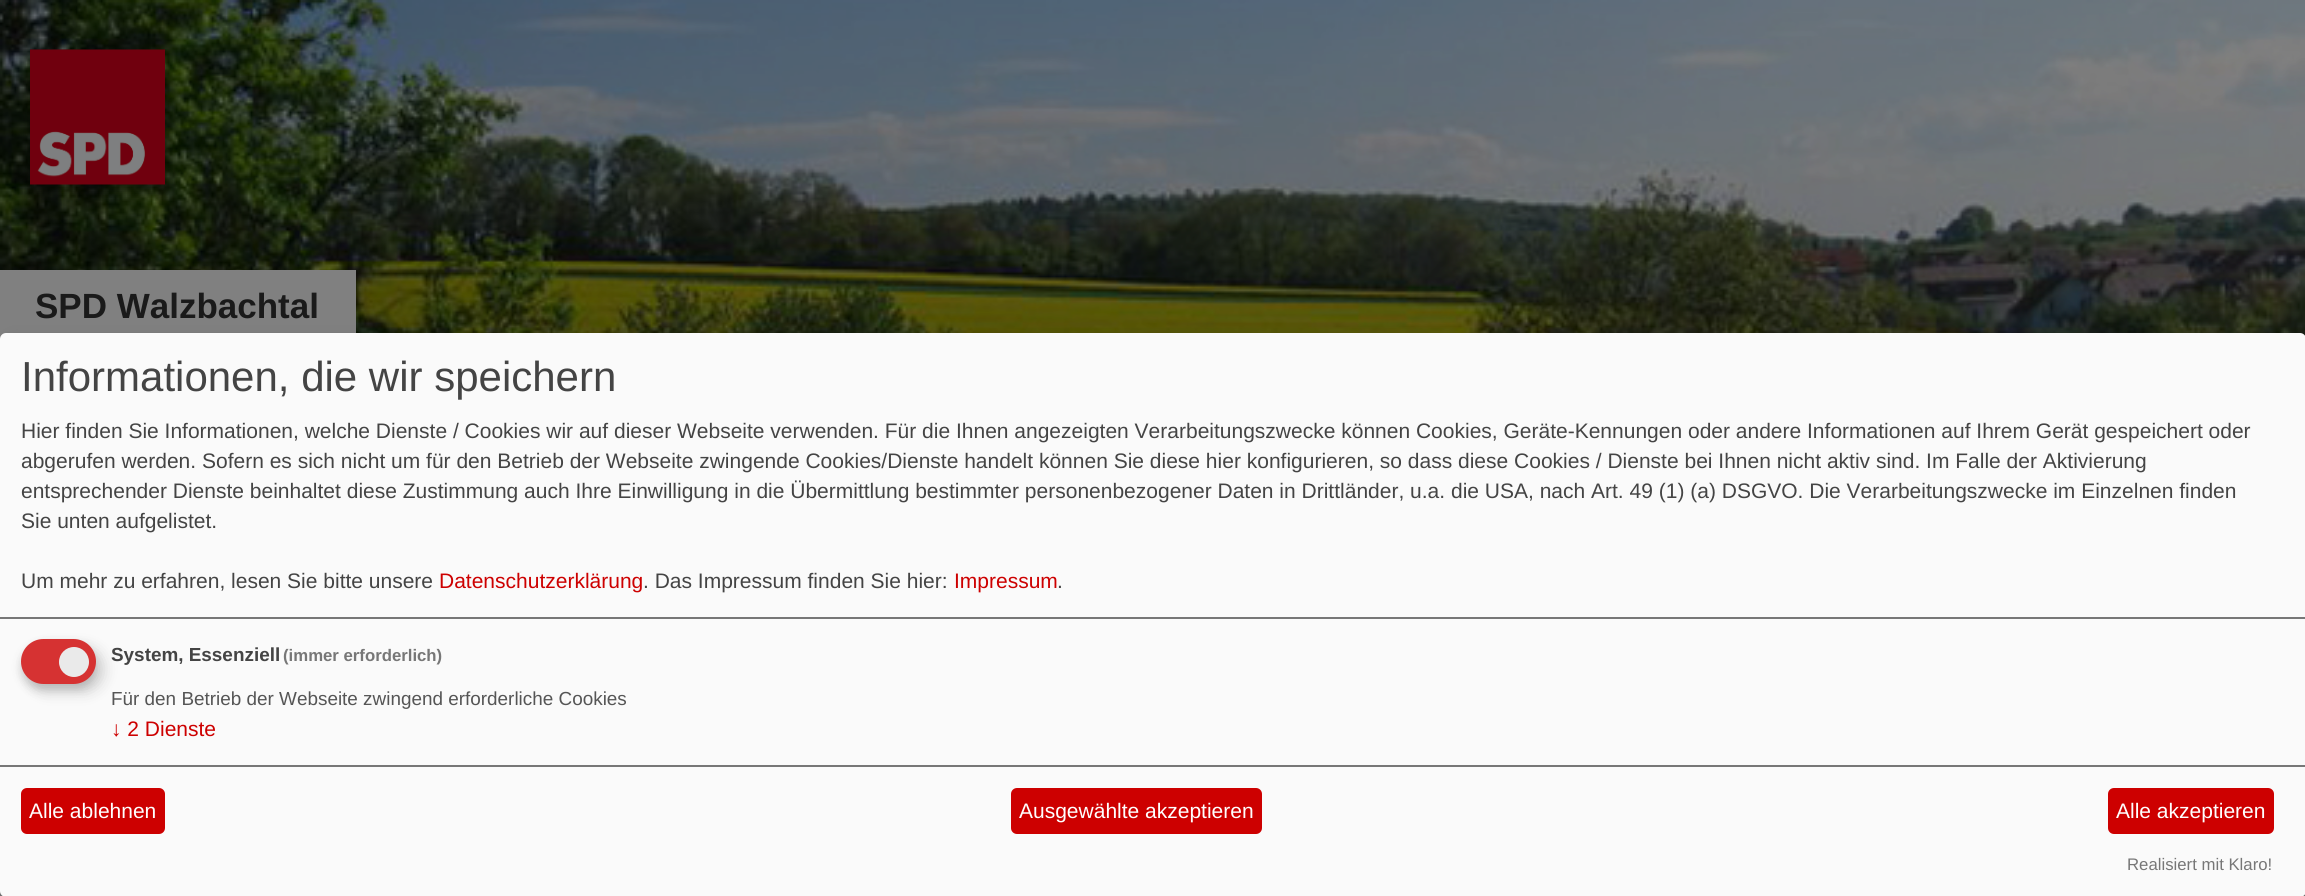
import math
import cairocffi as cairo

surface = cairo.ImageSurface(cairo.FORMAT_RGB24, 2305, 896)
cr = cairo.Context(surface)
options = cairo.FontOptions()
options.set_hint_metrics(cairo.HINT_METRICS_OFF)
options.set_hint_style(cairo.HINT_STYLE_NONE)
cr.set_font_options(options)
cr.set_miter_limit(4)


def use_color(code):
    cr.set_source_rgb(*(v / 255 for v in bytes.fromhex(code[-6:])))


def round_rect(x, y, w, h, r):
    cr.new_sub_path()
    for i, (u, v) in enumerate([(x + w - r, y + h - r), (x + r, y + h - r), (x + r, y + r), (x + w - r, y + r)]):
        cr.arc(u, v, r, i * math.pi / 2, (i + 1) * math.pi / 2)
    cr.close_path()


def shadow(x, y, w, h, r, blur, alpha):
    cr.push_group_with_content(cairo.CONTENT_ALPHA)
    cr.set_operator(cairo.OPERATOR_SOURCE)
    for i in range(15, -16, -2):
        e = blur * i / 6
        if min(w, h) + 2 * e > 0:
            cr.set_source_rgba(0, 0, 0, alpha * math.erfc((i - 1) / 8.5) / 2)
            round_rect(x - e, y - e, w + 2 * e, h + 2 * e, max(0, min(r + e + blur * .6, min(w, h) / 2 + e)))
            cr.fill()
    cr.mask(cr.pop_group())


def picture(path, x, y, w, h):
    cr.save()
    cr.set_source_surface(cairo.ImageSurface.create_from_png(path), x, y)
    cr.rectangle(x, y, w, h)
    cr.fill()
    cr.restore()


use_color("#808080")
cr.paint()
picture("img1.png", 0, 0, 2305, 336)
use_color("#000000")
shadow(32, 59, 132, 132, 0, 6, 0.4)
picture("img2.png", 30, 49, 135, 136)
shadow(2, 279, 352, 71, 0, 6, 0.4)
use_color("#808080")
cr.rectangle(0, 270, 356, 69)
cr.fill()
cr.select_font_face("Liberation Sans", cairo.FONT_SLANT_NORMAL, cairo.FONT_WEIGHT_BOLD)
cr.set_font_size(35)
use_color("#1a1a1a")
cr.move_to(35, 318)
cr.show_text("SPD Walzbachtal")
use_color("#000000")
shadow(8, 341, 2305, 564, 6, 7.5, 0.19)
shadow(0, 339, 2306, 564, 6, 4.5, 0.2)
use_color("#fafafa")
round_rect(0, 333, 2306, 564, 6)
cr.fill()
use_color("#777777")
cr.rectangle(0, 617, 2305, 2)
cr.fill()
cr.select_font_face("Liberation Sans")
cr.set_font_size(42)
use_color("#444444")
cr.move_to(21, 391)
cr.show_text("Informationen, die wir speichern")
cr.set_font_size(21)
cr.move_to(21, 438)
cr.show_text("Hier finden Sie Informationen, welche Dienste / Cookies wir auf dieser Webseite verwenden. Für die Ihnen angezeigten Verarbeitungszwecke können Cookies, Geräte-Kennungen oder andere Informationen auf Ihrem Gerät gespeichert oder")
cr.move_to(21, 468)
cr.show_text("abgerufen werden. Sofern es sich nicht um für den Betrieb der Webseite zwingende Cookies/Dienste handelt können Sie diese hier konfigurieren, so dass diese Cookies / Dienste bei Ihnen nicht aktiv sind. Im Falle der Aktivierung")
cr.move_to(21, 498)
cr.show_text("entsprechender Dienste beinhaltet diese Zustimmung auch Ihre Einwilligung in die Übermittlung bestimmter personenbezogener Daten in Drittländer, u.a. die USA, nach Art. 49 (1) (a) DSGVO. Die Verarbeitungszwecke im Einzelnen finden")
cr.move_to(21, 528)
cr.show_text("Sie unten aufgelistet.")
cr.move_to(21, 588)
cr.show_text("Um mehr zu erfahren, lesen Sie bitte unsere")
use_color("#cd0000")
cr.move_to(439, 588)
cr.show_text("Datenschutzerklärung")
use_color("#444444")
cr.move_to(643, 588)
cr.show_text(". Das Impressum finden Sie hier:")
use_color("#cd0000")
cr.move_to(954, 588)
cr.show_text("Impressum")
use_color("#444444")
cr.move_to(1057, 588)
cr.show_text(".")
use_color("#000000")
shadow(29, 647, 75, 45, 22.5, 7.5, 0.15)
use_color("#323232")
shadow(21, 645, 75, 45, 22.5, 4.5, 0.2)
use_color("#d63232")
round_rect(21, 639, 75, 45, 22.5)
cr.fill()
use_color("#eaeaea")
cr.arc(74, 662, 15, 0, 2 * math.pi)
cr.fill()
cr.select_font_face("Liberation Sans", cairo.FONT_SLANT_NORMAL, cairo.FONT_WEIGHT_BOLD)
cr.set_font_size(18.9)
use_color("#444444")
cr.move_to(111, 661)
cr.show_text("System, Essenziell")
cr.set_font_size(16.75)
use_color("#777777")
cr.move_to(283, 661)
cr.show_text("(immer erforderlich)")
cr.select_font_face("Liberation Sans")
cr.set_font_size(18.9)
use_color("#555555")
cr.move_to(111, 705)
cr.show_text("Für den Betrieb der Webseite zwingend erforderliche Cookies")
cr.set_font_size(21)
use_color("#cd0000")
cr.move_to(111, 736)
cr.show_text("↓ 2 Dienste")
use_color("#777777")
cr.rectangle(0, 765, 2305, 2)
cr.fill()
use_color("#cd0000")
round_rect(21, 788, 144, 46, 6)
cr.fill()
use_color("#ffffff")
cr.move_to(29, 818)
cr.show_text("Alle ablehnen")
use_color("#cd0000")
round_rect(1011, 788, 251, 46, 6)
cr.fill()
use_color("#ffffff")
cr.move_to(1019, 818)
cr.show_text("Ausgewählte akzeptieren")
use_color("#cd0000")
round_rect(2108, 788, 166, 46, 6)
cr.fill()
use_color("#ffffff")
cr.move_to(2116, 818)
cr.show_text("Alle akzeptieren")
cr.set_font_size(16.75)
use_color("#777777")
cr.move_to(2127, 870)
cr.show_text("Realisiert mit Klaro!")
surface.write_to_png("result.png")
